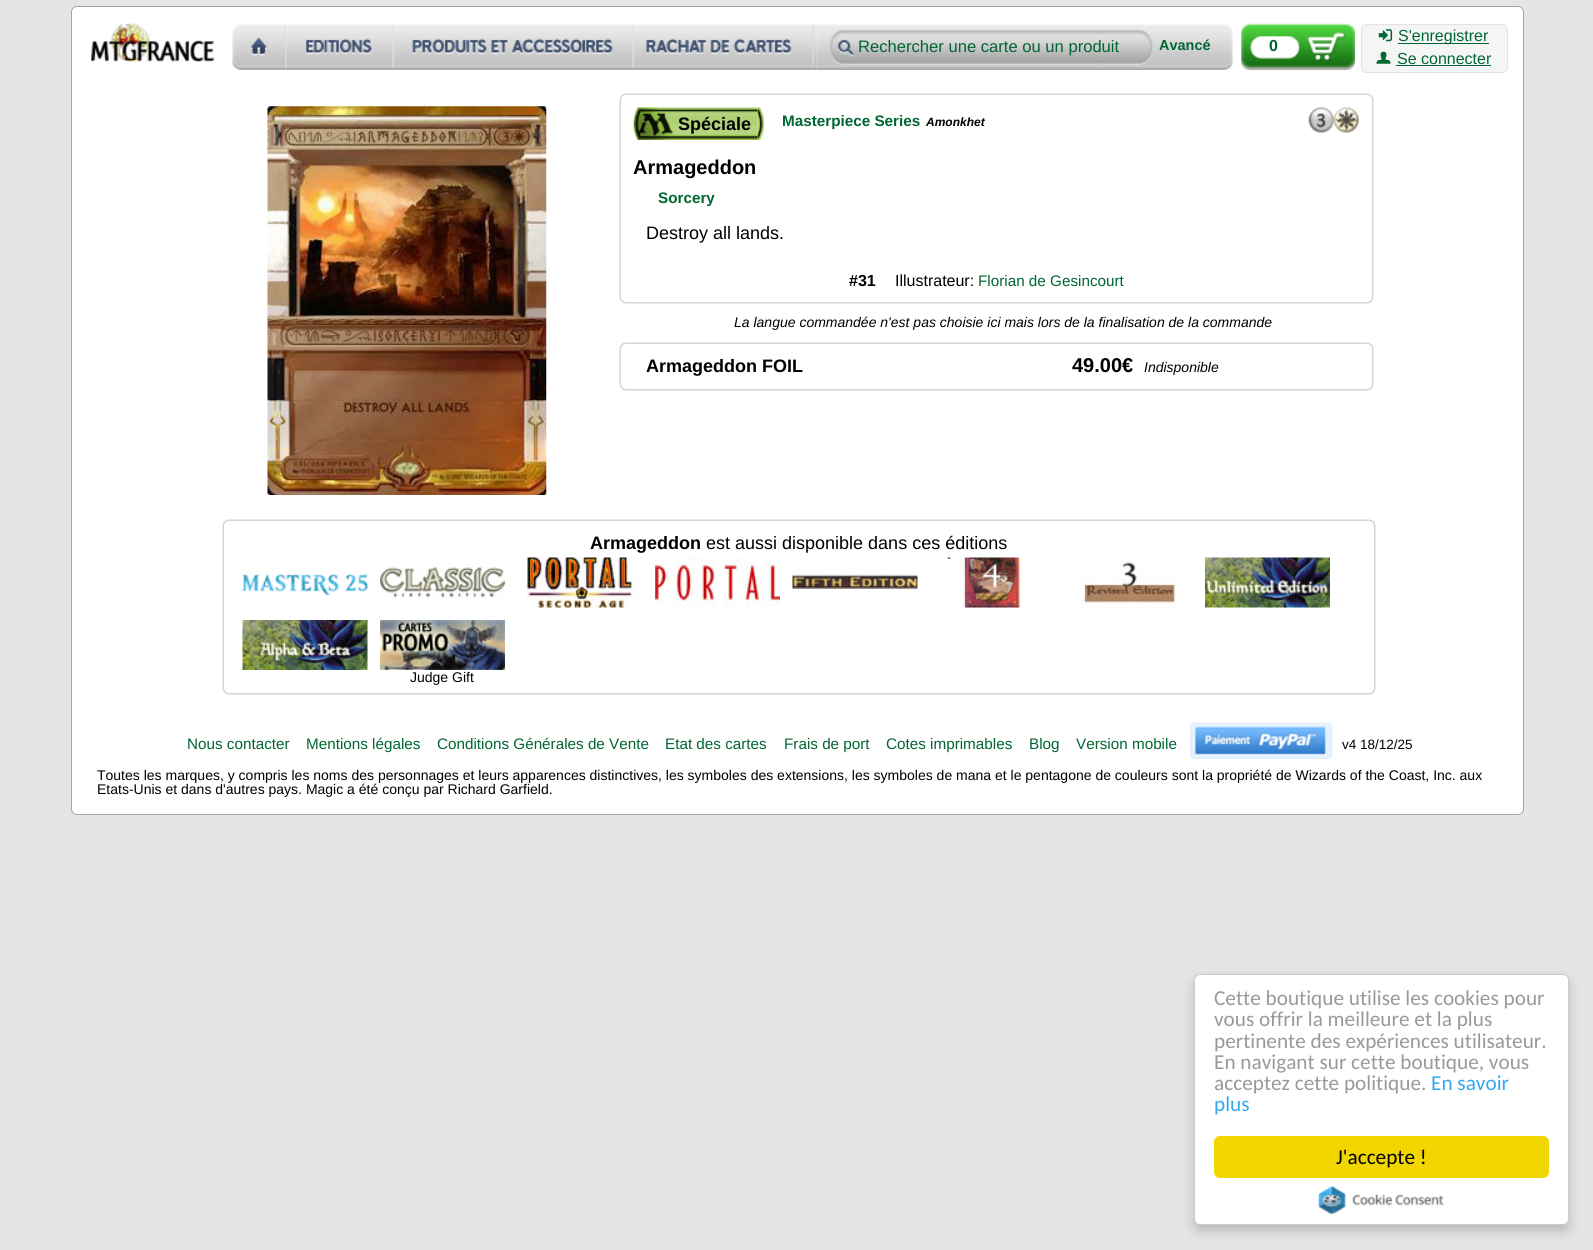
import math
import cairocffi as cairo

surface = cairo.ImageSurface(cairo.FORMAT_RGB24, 1593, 1250)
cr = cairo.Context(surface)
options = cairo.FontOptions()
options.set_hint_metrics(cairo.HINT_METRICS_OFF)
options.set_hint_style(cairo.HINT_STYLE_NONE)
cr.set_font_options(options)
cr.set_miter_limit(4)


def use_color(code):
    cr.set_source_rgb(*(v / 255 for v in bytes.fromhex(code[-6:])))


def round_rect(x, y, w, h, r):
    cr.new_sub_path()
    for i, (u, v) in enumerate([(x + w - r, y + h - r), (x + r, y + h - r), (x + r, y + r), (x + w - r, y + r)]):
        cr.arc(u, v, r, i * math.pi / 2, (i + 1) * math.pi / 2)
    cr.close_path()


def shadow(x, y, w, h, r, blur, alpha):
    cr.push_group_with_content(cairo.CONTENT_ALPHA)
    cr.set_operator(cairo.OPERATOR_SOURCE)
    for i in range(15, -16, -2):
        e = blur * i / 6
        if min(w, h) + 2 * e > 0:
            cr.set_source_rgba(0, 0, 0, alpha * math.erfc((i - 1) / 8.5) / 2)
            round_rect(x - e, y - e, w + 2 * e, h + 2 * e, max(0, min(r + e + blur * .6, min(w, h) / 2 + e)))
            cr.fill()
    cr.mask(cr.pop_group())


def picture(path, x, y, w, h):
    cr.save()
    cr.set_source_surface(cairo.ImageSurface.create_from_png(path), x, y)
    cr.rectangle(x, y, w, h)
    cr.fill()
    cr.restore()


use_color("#e5e5e5")
cr.paint()
use_color("#ffffff")
round_rect(71.5, 6.5, 1452, 808, 5.5)
cr.fill_preserve()
use_color("#a5a5a5")
cr.set_line_width(1)
cr.stroke()
picture("img1.png", 91, 23, 123, 39)
picture("img2.png", 232, 24, 55, 46)
picture("img3.png", 286, 24, 108, 46)
picture("img4.png", 393, 24, 241, 46)
picture("img5.png", 633, 24, 185, 46)
picture("img6.png", 817, 24, 416, 46)
cr.select_font_face("Liberation Sans")
cr.set_font_size(16.6)
use_color("#006633")
cr.move_to(858, 52)
cr.show_text("Rechercher une carte ou un produit")
cr.select_font_face("Liberation Sans", cairo.FONT_SLANT_NORMAL, cairo.FONT_WEIGHT_BOLD)
cr.set_font_size(14.5)
cr.move_to(1159, 50)
cr.show_text("Avancé")
picture("img7.png", 1241, 23, 114, 47)
cr.set_font_size(16)
cr.move_to(1269, 51)
cr.show_text("0")
use_color("#f5f5f5")
round_rect(1361.5, 24.5, 146, 48, 5.5)
cr.fill_preserve()
use_color("#e2e2e2")
cr.stroke()
picture("img8.png", 1378, 29, 15, 13)
use_color("#006633")
cr.rectangle(1398, 43, 91, 1)
cr.fill()
cr.select_font_face("Liberation Sans")
cr.move_to(1398, 41)
cr.show_text("S'enregistrer")
picture("img9.png", 1376, 51, 15, 13)
cr.move_to(1397, 64)
cr.show_text("Se connecter")
cr.rectangle(1396, 65, 95, 1)
cr.fill()
picture("img10.png", 267, 106, 280, 389)
use_color("#aaaaaa")
shadow(620, 94, 753, 209, 6, 0.5, 1)
use_color("#ffffff")
round_rect(620.5, 94.5, 752, 208, 5.5)
cr.fill_preserve()
use_color("#d7d5d2")
cr.stroke()
picture("img11.png", 757, 107, 7, 33)
picture("img12.png", 633, 107, 125, 33)
cr.select_font_face("Liberation Sans", cairo.FONT_SLANT_NORMAL, cairo.FONT_WEIGHT_BOLD)
cr.set_font_size(18)
use_color("#000000")
cr.move_to(678, 130)
cr.show_text("Spéciale")
cr.set_font_size(15.25)
use_color("#006633")
cr.move_to(782, 126)
cr.show_text("Masterpiece Series")
cr.select_font_face("Liberation Sans", cairo.FONT_SLANT_ITALIC, cairo.FONT_WEIGHT_BOLD)
cr.set_font_size(12)
use_color("#000000")
cr.move_to(926, 126)
cr.show_text("Amonkhet")
picture("img13.png", 1308, 107, 26, 26)
picture("img14.png", 1333, 107, 26, 26)
cr.select_font_face("Liberation Sans", cairo.FONT_SLANT_NORMAL, cairo.FONT_WEIGHT_BOLD)
cr.set_font_size(20)
cr.move_to(633, 174)
cr.show_text("Armageddon")
cr.set_font_size(15.25)
use_color("#006633")
cr.move_to(658, 203)
cr.show_text("Sorcery")
cr.select_font_face("Liberation Sans")
cr.set_font_size(18)
use_color("#000000")
cr.move_to(646, 239)
cr.show_text("Destroy all lands.")
cr.select_font_face("Liberation Sans", cairo.FONT_SLANT_NORMAL, cairo.FONT_WEIGHT_BOLD)
cr.set_font_size(16)
cr.move_to(849, 286)
cr.show_text("#31")
cr.select_font_face("Liberation Sans")
cr.move_to(895, 286)
cr.show_text("Illustrateur:")
cr.set_font_size(15.25)
use_color("#006633")
cr.move_to(978, 286)
cr.show_text("Florian de Gesincourt")
cr.select_font_face("Liberation Sans", cairo.FONT_SLANT_ITALIC)
cr.set_font_size(14)
use_color("#000000")
cr.move_to(734, 327)
cr.show_text("La langue commandée n'est pas choisie ici mais lors de la finalisation de la commande")
use_color("#aaaaaa")
shadow(620, 343, 753, 47, 6, 0.5, 1)
use_color("#ffffff")
round_rect(620.5, 343.5, 752, 46, 5.5)
cr.fill_preserve()
use_color("#d7d5d2")
cr.stroke()
cr.select_font_face("Liberation Sans", cairo.FONT_SLANT_NORMAL, cairo.FONT_WEIGHT_BOLD)
cr.set_font_size(18)
use_color("#000000")
cr.move_to(646, 372)
cr.show_text("Armageddon FOIL")
cr.set_font_size(20)
cr.move_to(1072, 372)
cr.show_text("49.00€")
cr.select_font_face("Liberation Sans", cairo.FONT_SLANT_ITALIC)
cr.set_font_size(14)
cr.move_to(1144, 372)
cr.show_text("Indisponible")
use_color("#aaaaaa")
shadow(223, 520, 1152, 174, 6, 0.5, 1)
use_color("#ffffff")
round_rect(223.5, 520.5, 1151, 173, 5.5)
cr.fill_preserve()
use_color("#d7d5d2")
cr.stroke()
cr.select_font_face("Liberation Sans", cairo.FONT_SLANT_NORMAL, cairo.FONT_WEIGHT_BOLD)
cr.set_font_size(18)
use_color("#000000")
cr.move_to(590, 549)
cr.show_text("Armageddon")
cr.select_font_face("Liberation Sans")
cr.move_to(706, 549)
cr.show_text("est aussi disponible dans ces éditions")
picture("img15.png", 242, 573, 126, 23)
picture("img16.png", 380, 567, 125, 31)
picture("img17.png", 527, 557, 111, 51)
picture("img18.png", 655, 557, 125, 51)
picture("img19.png", 792, 568, 126, 22)
picture("img20.png", 947, 557, 74, 51)
picture("img21.png", 1078, 559, 100, 49)
picture("img22.png", 1205, 557, 125, 51)
picture("img23.png", 242, 620, 126, 50)
picture("img24.png", 380, 620, 125, 50)
cr.set_font_size(14)
cr.move_to(410, 682)
cr.show_text("Judge Gift")
cr.set_font_size(15.25)
use_color("#006633")
cr.move_to(187, 749)
cr.show_text("Nous contacter")
cr.move_to(306, 749)
cr.show_text("Mentions légales")
cr.move_to(437, 749)
cr.show_text("Conditions Générales de Vente")
cr.move_to(665, 749)
cr.show_text("Etat des cartes")
cr.move_to(784, 749)
cr.show_text("Frais de port")
cr.move_to(886, 749)
cr.show_text("Cotes imprimables")
cr.move_to(1029, 749)
cr.show_text("Blog")
cr.move_to(1076, 749)
cr.show_text("Version mobile")
picture("img25.png", 1190, 722, 143, 37)
cr.set_font_size(13.5)
use_color("#000000")
cr.move_to(1342, 749)
cr.show_text("v4 18/12/25")
cr.set_font_size(14)
cr.move_to(97, 780)
cr.show_text("Toutes les marques, y compris les noms des personnages et leurs apparences distinctives, les symboles des extensions, les symboles de mana et le pentagone de couleurs sont la propriété de Wizards of the Coast, Inc. aux")
cr.move_to(97, 794)
cr.show_text("Etats-Unis et dans d'autres pays. Magic a été conçu par Richard Garfield.")
use_color("#000000")
shadow(1194, 980, 375, 251, 6, 6, 0.2)
use_color("#ffffff")
round_rect(1194.5, 974.5, 374, 250, 5.5)
cr.fill_preserve()
use_color("#cccccc")
cr.stroke()
cr.select_font_face("Carlito")
cr.set_font_size(21.25)
use_color("#999999")
cr.move_to(1214, 1005)
cr.show_text("Cette boutique utilise les cookies pour")
cr.move_to(1214, 1026)
cr.show_text("vous offrir la meilleure et la plus")
cr.move_to(1214, 1048)
cr.show_text("pertinente des expériences utilisateur.")
cr.move_to(1214, 1069)
cr.show_text("En navigant sur cette boutique, vous")
cr.move_to(1214, 1090)
cr.show_text("acceptez cette politique.")
use_color("#31a8f0")
cr.move_to(1431, 1090)
cr.show_text("En savoir")
cr.move_to(1214, 1111)
cr.show_text("plus")
use_color("#f1d600")
round_rect(1214, 1136, 335, 42, 6)
cr.fill()
use_color("#000000")
cr.move_to(1336, 1164)
cr.show_text("J'accepte !")
picture("img26.png", 1318, 1186, 126, 29)
surface.write_to_png("result.png")
